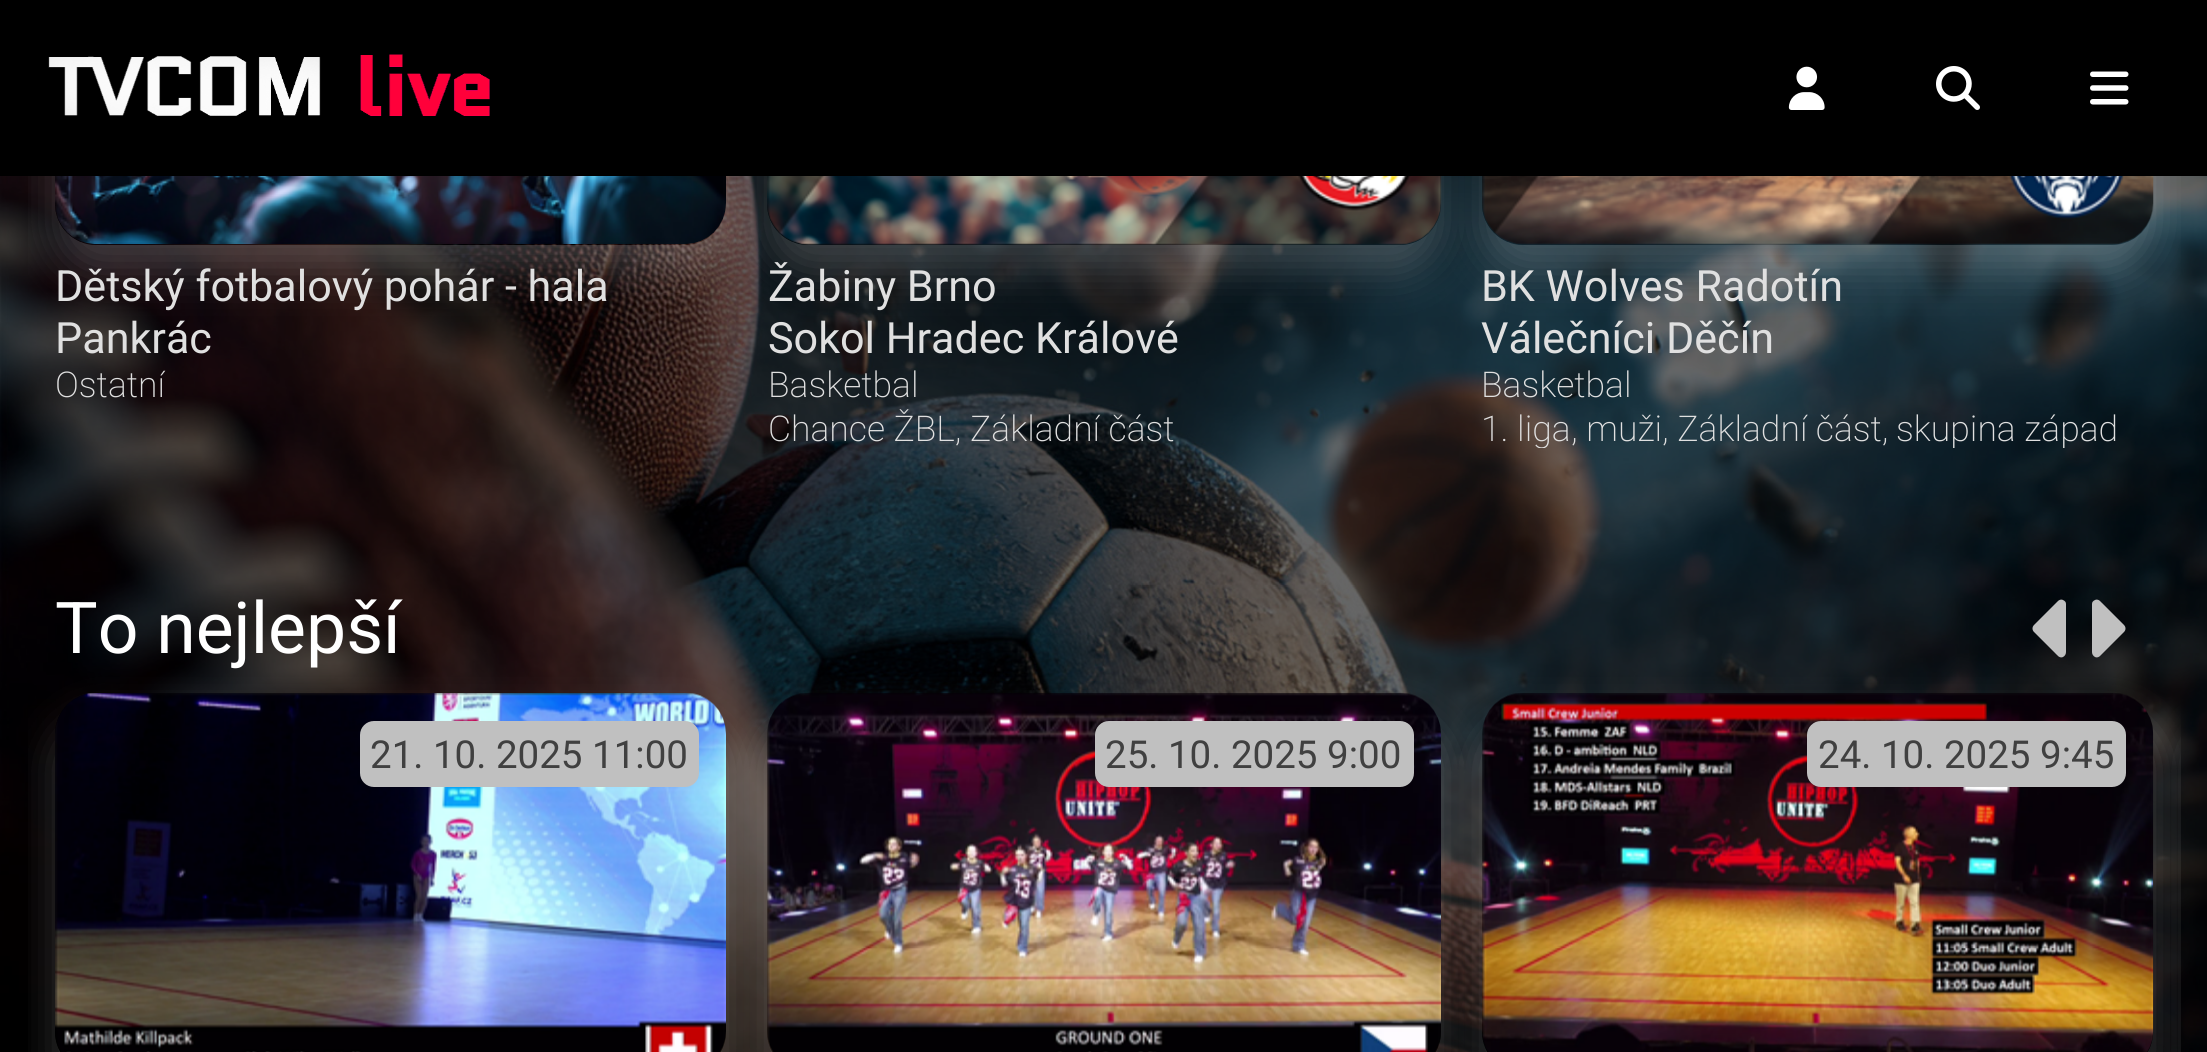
import math
import cairocffi as cairo

surface = cairo.ImageSurface(cairo.FORMAT_RGB24, 2207, 1052)
cr = cairo.Context(surface)
options = cairo.FontOptions()
options.set_hint_metrics(cairo.HINT_METRICS_OFF)
options.set_hint_style(cairo.HINT_STYLE_NONE)
cr.set_font_options(options)
cr.set_miter_limit(4)


def use_color(code):
    cr.set_source_rgb(*(v / 255 for v in bytes.fromhex(code[-6:])))


def round_rect(x, y, w, h, r):
    cr.new_sub_path()
    for i, (u, v) in enumerate([(x + w - r, y + h - r), (x + r, y + h - r), (x + r, y + r), (x + w - r, y + r)]):
        cr.arc(u, v, r, i * math.pi / 2, (i + 1) * math.pi / 2)
    cr.close_path()


def shadow(x, y, w, h, r, blur, alpha):
    cr.push_group_with_content(cairo.CONTENT_ALPHA)
    cr.set_operator(cairo.OPERATOR_SOURCE)
    for i in range(15, -16, -2):
        e = blur * i / 6
        if min(w, h) + 2 * e > 0:
            cr.set_source_rgba(0, 0, 0, alpha * math.erfc((i - 1) / 8.5) / 2)
            round_rect(x - e, y - e, w + 2 * e, h + 2 * e, max(0, min(r + e + blur * .6, min(w, h) / 2 + e)))
            cr.fill()
    cr.mask(cr.pop_group())


def picture(path, x, y, w, h):
    cr.save()
    cr.set_source_surface(cairo.ImageSurface.create_from_png(path), x, y)
    cr.rectangle(x, y, w, h)
    cr.fill()
    cr.restore()


use_color("#ffffff")
cr.paint()
picture("img1.png", 0, 176, 2207, 876)
cr.save()
cr.rectangle(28, 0, 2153, 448)
cr.clip()
cr.set_fill_rule(cairo.FILL_RULE_EVEN_ODD)
cr.new_path()
cr.move_to(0, 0)
cr.line_to(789, 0)
cr.line_to(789, 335)
cr.line_to(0, 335)
cr.close_path()
cr.move_to(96, -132)
cr.line_to(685, -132)
cr.curve_to(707.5, -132, 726, -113.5, 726, -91)
cr.line_to(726, 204)
cr.curve_to(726, 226.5, 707.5, 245, 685, 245)
cr.line_to(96, 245)
cr.curve_to(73.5, 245, 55, 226.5, 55, 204)
cr.line_to(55, -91)
cr.curve_to(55, -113.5, 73.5, -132, 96, -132)
cr.close_path()
cr.clip()
shadow(55, -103, 671, 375, 41, 20.5, 0.2)
cr.restore()
picture("img6.png", 55, 176, 671, 68)
cr.save()
cr.set_fill_rule(cairo.FILL_RULE_EVEN_ODD)
cr.new_path()
cr.move_to(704, 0)
cr.line_to(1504, 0)
cr.line_to(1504, 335)
cr.line_to(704, 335)
cr.close_path()
cr.move_to(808, -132)
cr.line_to(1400, -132)
cr.curve_to(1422.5, -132, 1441, -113.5, 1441, -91)
cr.line_to(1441, 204)
cr.curve_to(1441, 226.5, 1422.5, 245, 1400, 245)
cr.line_to(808, 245)
cr.curve_to(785.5, 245, 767, 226.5, 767, 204)
cr.line_to(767, -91)
cr.curve_to(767, -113.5, 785.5, -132, 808, -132)
cr.close_path()
cr.clip()
shadow(767, -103, 674, 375, 41, 20.5, 0.2)
cr.restore()
picture("img7.png", 767, 176, 675, 69)
cr.save()
cr.rectangle(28, 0, 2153, 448)
cr.clip()
cr.set_fill_rule(cairo.FILL_RULE_EVEN_ODD)
cr.new_path()
cr.move_to(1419, 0)
cr.line_to(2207, 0)
cr.line_to(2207, 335)
cr.line_to(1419, 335)
cr.close_path()
cr.move_to(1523, -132)
cr.line_to(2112, -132)
cr.curve_to(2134.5, -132, 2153, -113.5, 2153, -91)
cr.line_to(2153, 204)
cr.curve_to(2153, 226.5, 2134.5, 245, 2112, 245)
cr.line_to(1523, 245)
cr.curve_to(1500.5, 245, 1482, 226.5, 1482, 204)
cr.line_to(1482, -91)
cr.curve_to(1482, -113.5, 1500.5, -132, 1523, -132)
cr.close_path()
cr.clip()
shadow(1482, -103, 671, 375, 41, 20.5, 0.2)
cr.restore()
use_color("#000000")
cr.rectangle(0, 0, 2207, 176)
cr.fill()
picture("img2.png", 48, 54, 442, 62)
picture("img3.png", 1788, 66, 37, 44)
picture("img4.png", 1936, 66, 44, 44)
picture("img5.png", 2090, 71, 39, 34)
cr.select_font_face("Roboto")
cr.set_font_size(43.1)
use_color("#e0e0e0")
cr.move_to(55, 301)
cr.show_text("Dětský fotbalový pohár - hala")
cr.move_to(55, 353)
cr.show_text("Pankrác")
cr.select_font_face("Roboto ExtraLight")
cr.set_font_size(35.5)
cr.move_to(55, 397)
cr.show_text("Ostatní")
cr.select_font_face("Roboto")
cr.set_font_size(43.1)
cr.move_to(768, 301)
cr.show_text("Žabiny Brno")
cr.move_to(768, 353)
cr.show_text("Sokol Hradec Králové")
cr.select_font_face("Roboto ExtraLight")
cr.set_font_size(35.5)
cr.move_to(768, 397)
cr.show_text("Basketbal")
cr.move_to(768, 441)
cr.show_text("Chance ŽBL, Základní část")
picture("img8.png", 1482, 176, 672, 69)
cr.select_font_face("Roboto")
cr.set_font_size(43.1)
cr.move_to(1481, 301)
cr.show_text("BK Wolves Radotín")
cr.move_to(1481, 353)
cr.show_text("Válečníci Děčín")
cr.select_font_face("Roboto ExtraLight")
cr.set_font_size(35.5)
cr.move_to(1481, 397)
cr.show_text("Basketbal")
cr.save()
cr.rectangle(28, 0, 2153, 448)
cr.clip()
cr.move_to(1481, 441)
cr.show_text("1. liga")
cr.restore()
cr.move_to(1571, 441)
cr.show_text(", muži, Základní část,")
cr.save()
cr.rectangle(28, 0, 2153, 448)
cr.clip()
cr.move_to(1896, 441)
cr.show_text("skupina západ")
cr.restore()
cr.select_font_face("Roboto")
cr.set_font_size(71.5)
use_color("#ffffff")
cr.move_to(55, 653)
cr.show_text("To nejlepší")
use_color("#c0c0c0")
cr.new_path()
cr.move_to(2066, 604)
cr.curve_to(2066, 602, 2065, 601, 2063, 600)
cr.curve_to(2061, 599, 2059, 600, 2058, 601)
cr.line_to(2034, 625)
cr.curve_to(2032, 627, 2032, 630, 2034, 632)
cr.line_to(2058, 656)
cr.curve_to(2059, 657, 2061, 658, 2063, 657)
cr.curve_to(2065, 656, 2066, 654, 2066, 652)
cr.close_path()
cr.fill()
cr.new_path()
cr.move_to(2092, 604)
cr.curve_to(2092, 602, 2093, 601, 2095, 600)
cr.curve_to(2097, 599, 2099, 600, 2100, 601)
cr.line_to(2124, 625)
cr.curve_to(2126, 627, 2126, 630, 2124, 632)
cr.line_to(2100, 656)
cr.curve_to(2099, 657, 2097, 658, 2095, 657)
cr.curve_to(2093, 656, 2092, 654, 2092, 652)
cr.close_path()
cr.fill()
cr.save()
cr.rectangle(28, 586, 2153, 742)
cr.clip()
cr.set_fill_rule(cairo.FILL_RULE_EVEN_ODD)
cr.new_path()
cr.move_to(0, 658)
cr.line_to(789, 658)
cr.line_to(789, 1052)
cr.line_to(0, 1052)
cr.close_path()
cr.move_to(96, 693)
cr.line_to(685, 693)
cr.curve_to(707.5, 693, 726, 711.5, 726, 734)
cr.line_to(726, 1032)
cr.curve_to(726, 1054.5, 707.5, 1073, 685, 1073)
cr.line_to(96, 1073)
cr.curve_to(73.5, 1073, 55, 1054.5, 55, 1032)
cr.line_to(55, 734)
cr.curve_to(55, 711.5, 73.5, 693, 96, 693)
cr.close_path()
cr.clip()
use_color("#ffffff")
shadow(55, 721, 671, 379, 41, 20.5, 0.2)
cr.restore()
picture("img9.png", 55, 693, 671, 359)
round_rect(360, 721, 339, 66, 14)
cr.fill()
cr.set_font_size(38.5)
use_color("#404040")
cr.move_to(370, 768)
cr.show_text("21. 10. 2025 11:00")
cr.save()
cr.set_fill_rule(cairo.FILL_RULE_EVEN_ODD)
cr.new_path()
cr.move_to(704, 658)
cr.line_to(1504, 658)
cr.line_to(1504, 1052)
cr.line_to(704, 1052)
cr.close_path()
cr.move_to(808, 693)
cr.line_to(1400, 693)
cr.curve_to(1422.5, 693, 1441, 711.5, 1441, 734)
cr.line_to(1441, 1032)
cr.curve_to(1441, 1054.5, 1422.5, 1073, 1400, 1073)
cr.line_to(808, 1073)
cr.curve_to(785.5, 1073, 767, 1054.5, 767, 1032)
cr.line_to(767, 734)
cr.curve_to(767, 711.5, 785.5, 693, 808, 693)
cr.close_path()
cr.clip()
use_color("#ffffff")
shadow(767, 721, 674, 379, 41, 20.5, 0.2)
cr.restore()
picture("img10.png", 767, 693, 674, 359)
use_color("#c0c0c0")
round_rect(1095, 721, 319, 66, 14)
cr.fill()
use_color("#404040")
cr.move_to(1105, 768)
cr.show_text("25. 10. 2025 9:00")
cr.save()
cr.rectangle(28, 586, 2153, 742)
cr.clip()
cr.set_fill_rule(cairo.FILL_RULE_EVEN_ODD)
cr.new_path()
cr.move_to(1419, 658)
cr.line_to(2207, 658)
cr.line_to(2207, 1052)
cr.line_to(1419, 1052)
cr.close_path()
cr.move_to(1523, 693)
cr.line_to(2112, 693)
cr.curve_to(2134.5, 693, 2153, 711.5, 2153, 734)
cr.line_to(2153, 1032)
cr.curve_to(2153, 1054.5, 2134.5, 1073, 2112, 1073)
cr.line_to(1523, 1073)
cr.curve_to(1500.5, 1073, 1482, 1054.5, 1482, 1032)
cr.line_to(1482, 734)
cr.curve_to(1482, 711.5, 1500.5, 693, 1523, 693)
cr.close_path()
cr.clip()
use_color("#ffffff")
shadow(1482, 721, 671, 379, 41, 20.5, 0.2)
cr.restore()
picture("img11.png", 1482, 693, 672, 359)
use_color("#c0c0c0")
round_rect(1807, 721, 319, 66, 14)
cr.fill()
use_color("#404040")
cr.move_to(1818, 768)
cr.show_text("24. 10. 2025 9:45")
cr.save()
cr.rectangle(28, 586, 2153, 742)
cr.clip()
use_color("#ffffff")
shadow(2195, 721, 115, 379, 41, 20.5, 0.2)
cr.restore()
surface.write_to_png("result.png")
